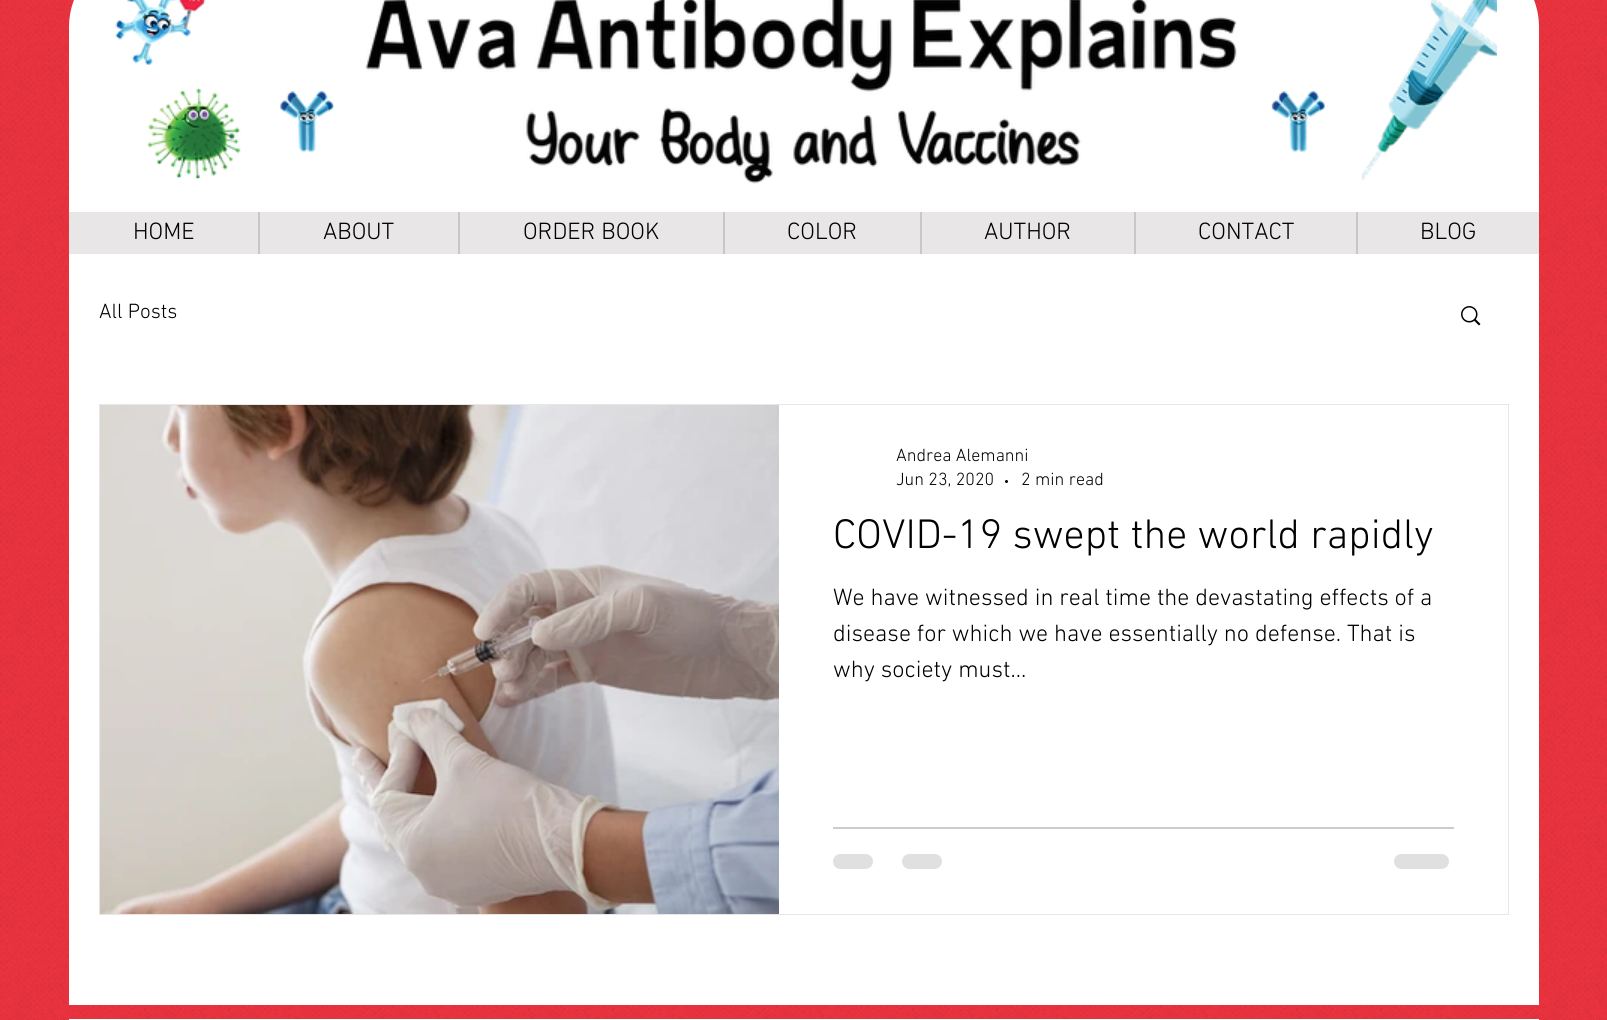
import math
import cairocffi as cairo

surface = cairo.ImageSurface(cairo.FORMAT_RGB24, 1607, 1020)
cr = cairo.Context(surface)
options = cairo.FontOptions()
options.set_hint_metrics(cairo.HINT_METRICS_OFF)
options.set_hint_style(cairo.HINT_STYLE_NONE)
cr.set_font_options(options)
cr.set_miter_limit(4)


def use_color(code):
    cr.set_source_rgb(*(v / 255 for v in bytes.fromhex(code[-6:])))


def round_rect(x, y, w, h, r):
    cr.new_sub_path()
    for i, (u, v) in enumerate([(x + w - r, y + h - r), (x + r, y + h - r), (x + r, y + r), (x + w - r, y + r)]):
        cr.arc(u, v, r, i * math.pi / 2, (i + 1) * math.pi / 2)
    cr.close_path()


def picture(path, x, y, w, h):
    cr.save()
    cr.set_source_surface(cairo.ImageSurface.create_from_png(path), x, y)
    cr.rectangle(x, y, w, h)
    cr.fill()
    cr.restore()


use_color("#eb333f")
cr.paint()
picture("img1.png", 0, 0, 1607, 1020)
use_color("#ffffff")
cr.new_path()
cr.move_to(144, -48)
cr.line_to(1464, -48)
cr.curve_to(1505.5, -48, 1539, -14.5, 1539, 27)
cr.line_to(1539, 254)
cr.line_to(69, 254)
cr.line_to(69, 27)
cr.curve_to(69, -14.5, 102.5, -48, 144, -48)
cr.close_path()
cr.fill()
picture("img2.png", 115, 0, 91, 66)
picture("img3.png", 365, 0, 872, 184)
picture("img4.png", 1362, 0, 135, 181)
picture("img5.png", 147, 88, 94, 91)
picture("img6.png", 280, 91, 54, 61)
picture("img7.png", 1271, 91, 54, 61)
use_color("#e8e6e6")
cr.rectangle(69, 212, 1470, 42)
cr.fill()
cr.select_font_face("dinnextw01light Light")
cr.set_font_size(24)
use_color("#000000")
cr.move_to(133, 239)
cr.show_text("HOME")
use_color("#c7c7c7")
cr.rectangle(258, 212, 2, 42)
cr.fill()
use_color("#000000")
cr.move_to(323, 239)
cr.show_text("ABOUT")
use_color("#c7c7c7")
cr.rectangle(458, 212, 2, 42)
cr.fill()
use_color("#000000")
cr.move_to(523, 239)
cr.show_text("ORDER BOOK")
use_color("#c7c7c7")
cr.rectangle(723, 212, 2, 42)
cr.fill()
use_color("#000000")
cr.move_to(787, 239)
cr.show_text("COLOR")
use_color("#c7c7c7")
cr.rectangle(920, 212, 2, 42)
cr.fill()
use_color("#000000")
cr.move_to(984, 239)
cr.show_text("AUTHOR")
use_color("#c7c7c7")
cr.rectangle(1134, 212, 2, 42)
cr.fill()
use_color("#000000")
cr.move_to(1198, 239)
cr.show_text("CONTACT")
use_color("#c7c7c7")
cr.rectangle(1356, 212, 2, 42)
cr.fill()
use_color("#000000")
cr.move_to(1420, 239)
cr.show_text("BLOG")
use_color("#ffffff")
cr.rectangle(69, 254, 1470, 751)
cr.fill()
cr.set_font_size(21)
use_color("#000000")
cr.move_to(99, 318)
cr.show_text("All Posts")
picture("img8.png", 1461, 306, 20, 20)
cr.rectangle(100, 405, 1408, 509)
use_color("#e8e6e6")
cr.stroke()
picture("img9.png", 100, 405, 1, 509)
picture("img10.png", 101, 405, 678, 509)
use_color("#ffffff")
cr.rectangle(779, 405, 729, 509)
cr.fill()
cr.set_font_size(18)
use_color("#000000")
cr.move_to(896, 461)
cr.show_text("Andrea Alemanni")
cr.move_to(896, 485)
cr.show_text("Jun 23, 2020")
cr.new_path()
cr.arc(1006.5, 481.5, 1.5, 0, 2 * math.pi)
cr.fill()
cr.move_to(1021, 485)
cr.show_text("2 min read")
cr.set_font_size(42)
cr.move_to(833, 548)
cr.show_text("COVID-19 swept the world rapidly")
cr.set_font_size(24)
cr.move_to(833, 605)
cr.show_text("We have witnessed in real time the devastating effects of a")
cr.move_to(833, 641)
cr.show_text("disease for which we have essentially no defense. That is")
cr.move_to(833, 677)
cr.show_text("why society must...")
use_color("#cccccc")
cr.rectangle(833, 827, 621, 2)
cr.fill()
use_color("#e0e0e0")
round_rect(833, 854, 40, 15, 7.5)
cr.fill()
round_rect(902, 854, 40, 15, 7.5)
cr.fill()
round_rect(1394, 854, 55, 15, 7.5)
cr.fill()
use_color("#ffffff")
cr.rectangle(69, 1019, 1470, 1)
cr.fill()
surface.write_to_png("result.png")
